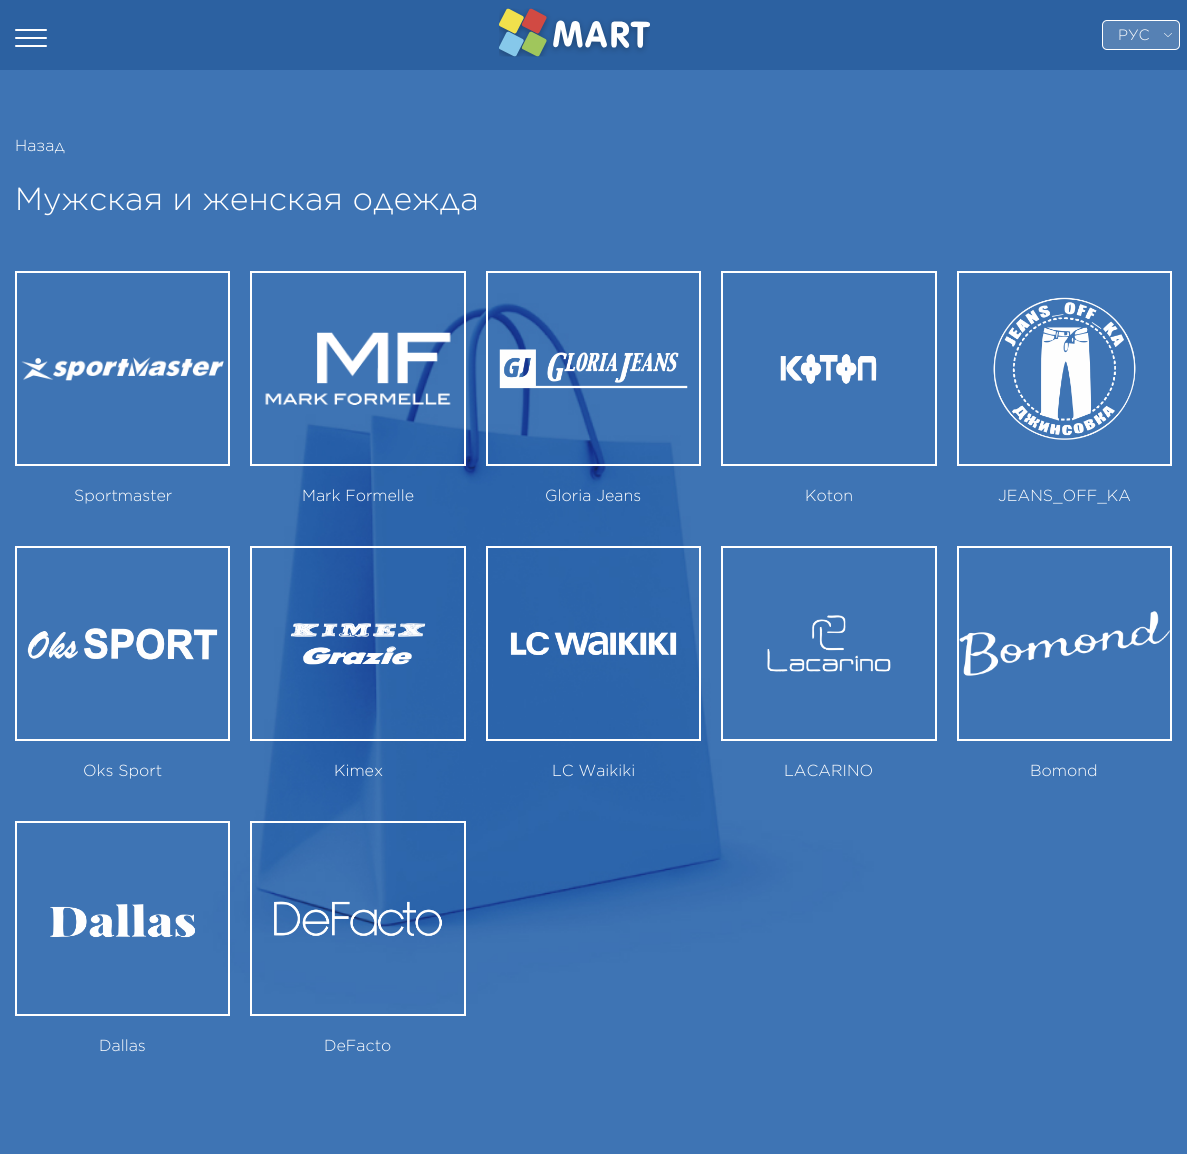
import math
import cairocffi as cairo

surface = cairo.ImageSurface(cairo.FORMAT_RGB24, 1187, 1164)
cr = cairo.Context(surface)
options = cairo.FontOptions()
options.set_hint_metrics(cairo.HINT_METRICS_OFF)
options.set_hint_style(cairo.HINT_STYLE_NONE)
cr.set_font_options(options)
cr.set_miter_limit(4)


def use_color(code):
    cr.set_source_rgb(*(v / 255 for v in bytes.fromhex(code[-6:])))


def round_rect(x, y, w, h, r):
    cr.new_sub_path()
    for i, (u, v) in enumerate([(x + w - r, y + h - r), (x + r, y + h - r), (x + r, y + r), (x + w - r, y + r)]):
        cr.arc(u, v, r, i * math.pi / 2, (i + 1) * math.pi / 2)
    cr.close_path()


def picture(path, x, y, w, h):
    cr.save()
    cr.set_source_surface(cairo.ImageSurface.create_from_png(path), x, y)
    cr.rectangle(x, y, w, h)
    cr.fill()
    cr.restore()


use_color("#ffffff")
cr.paint()
use_color("#2c61a1")
cr.rectangle(0, 0, 1187, 70)
cr.fill()
use_color("#ffffff")
round_rect(15, 29, 32, 2, 1)
cr.fill()
round_rect(15, 37, 32, 2, 1)
cr.fill()
round_rect(15, 45, 32, 2, 1)
cr.fill()
picture("img1.png", 499, 8, 151, 49)
use_color("#5681b4")
round_rect(1102.5, 20.5, 77, 29, 4.5)
cr.fill_preserve()
use_color("#ffffff")
cr.set_line_width(1)
cr.stroke()
cr.select_font_face("Gotham Light")
cr.set_font_size(15)
cr.move_to(1118, 40)
cr.show_text("РУС")
picture("img2.png", 1164, 33, 8, 4)
picture("img3.png", 0, 70, 1187, 1084)
cr.set_font_size(16)
cr.move_to(15, 151)
cr.show_text("Назад")
cr.set_font_size(32)
cr.move_to(15, 210)
cr.show_text("Мужская и женская одежда")
cr.rectangle(16, 272, 213, 193)
cr.set_line_width(2)
cr.stroke()
picture("img4.png", 21, 357, 203, 24)
cr.set_font_size(16)
cr.move_to(74, 501)
cr.show_text("Sportmaster")
cr.rectangle(251, 272, 214, 193)
cr.stroke()
picture("img5.png", 265, 332, 186, 73)
cr.move_to(302, 501)
cr.show_text("Mark Formelle")
cr.rectangle(487, 272, 213, 193)
cr.stroke()
picture("img6.png", 499, 349, 189, 40)
cr.move_to(545, 501)
cr.show_text("Gloria Jeans")
cr.rectangle(722, 272, 214, 193)
cr.stroke()
picture("img7.png", 780, 354, 97, 30)
cr.move_to(805, 501)
cr.show_text("Koton")
cr.rectangle(958, 272, 213, 193)
cr.stroke()
picture("img8.png", 993, 297, 143, 143)
cr.move_to(998, 501)
cr.show_text("JEANS_OFF_KA")
cr.rectangle(16, 547, 213, 193)
cr.stroke()
picture("img9.png", 27, 628, 191, 32)
cr.move_to(83, 776)
cr.show_text("Oks Sport")
cr.rectangle(251, 547, 214, 193)
cr.stroke()
picture("img10.png", 290, 623, 136, 42)
cr.move_to(334, 776)
cr.show_text("Kimex")
cr.rectangle(487, 547, 213, 193)
cr.stroke()
picture("img11.png", 510, 632, 167, 24)
cr.move_to(552, 776)
cr.show_text("LC Waikiki")
cr.rectangle(722, 547, 214, 193)
cr.stroke()
picture("img12.png", 767, 615, 124, 57)
cr.move_to(784, 776)
cr.show_text("LACARINO")
cr.rectangle(958, 547, 213, 193)
cr.stroke()
picture("img13.png", 959, 611, 211, 65)
cr.move_to(1030, 776)
cr.show_text("Bomond")
cr.rectangle(16, 822, 213, 193)
cr.stroke()
picture("img14.png", 50, 904, 145, 34)
cr.move_to(99, 1051)
cr.show_text("Dallas")
cr.rectangle(251, 822, 214, 193)
cr.stroke()
picture("img15.png", 274, 901, 169, 35)
cr.move_to(324, 1051)
cr.show_text("DeFacto")
surface.write_to_png("result.png")
